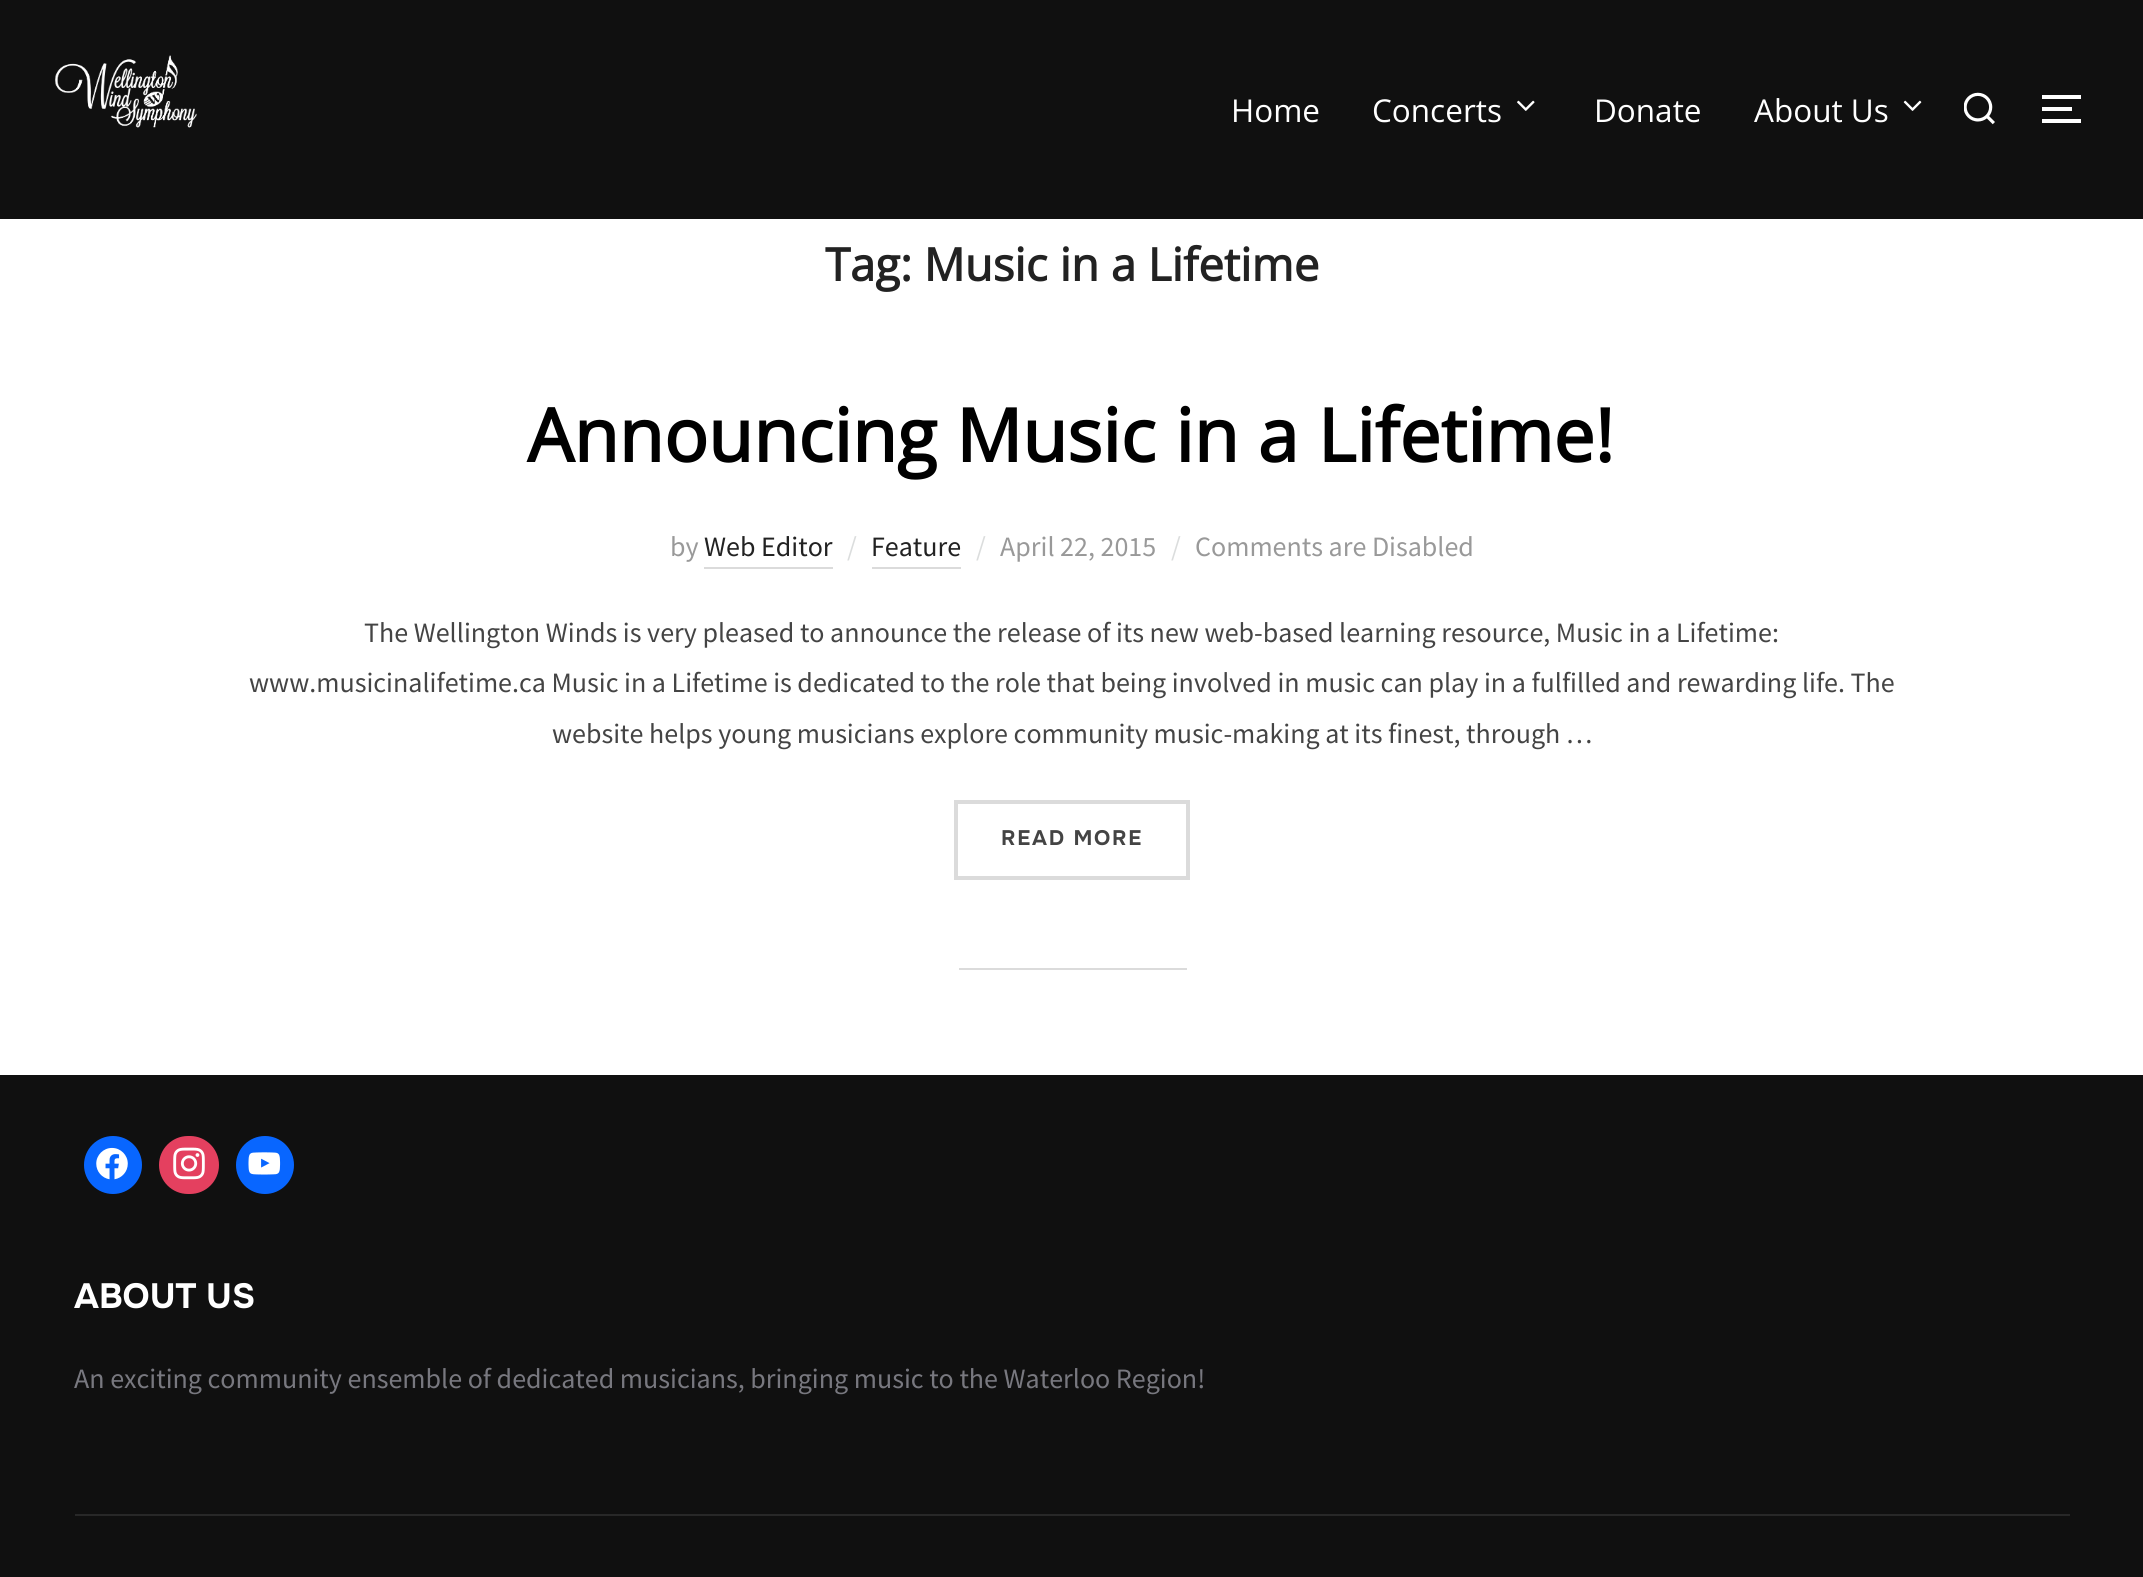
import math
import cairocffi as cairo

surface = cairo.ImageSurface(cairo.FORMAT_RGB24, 2143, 1577)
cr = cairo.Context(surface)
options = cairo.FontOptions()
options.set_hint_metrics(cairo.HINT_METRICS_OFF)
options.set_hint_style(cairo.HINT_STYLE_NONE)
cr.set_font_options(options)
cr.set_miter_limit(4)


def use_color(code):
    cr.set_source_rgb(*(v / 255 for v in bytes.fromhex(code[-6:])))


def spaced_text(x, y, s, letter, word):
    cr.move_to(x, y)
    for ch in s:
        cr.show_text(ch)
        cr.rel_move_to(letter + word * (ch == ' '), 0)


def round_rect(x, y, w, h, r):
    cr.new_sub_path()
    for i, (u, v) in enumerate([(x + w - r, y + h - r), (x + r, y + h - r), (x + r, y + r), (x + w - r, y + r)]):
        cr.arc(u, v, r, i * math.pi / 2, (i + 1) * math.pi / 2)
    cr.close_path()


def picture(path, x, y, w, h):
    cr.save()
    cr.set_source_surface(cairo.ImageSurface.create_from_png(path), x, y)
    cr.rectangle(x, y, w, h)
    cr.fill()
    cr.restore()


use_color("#ffffff")
cr.paint()
use_color("#101010")
cr.rectangle(0, 0, 2143, 219)
cr.fill()
picture("img1.png", 55, 55, 142, 73)
cr.select_font_face("Open Sans")
cr.set_font_size(31.5)
use_color("#ffffff")
cr.move_to(1231, 122)
cr.show_text("Home")
cr.move_to(1372, 122)
cr.show_text("Concerts")
picture("img2.png", 1517, 100, 18, 11)
cr.move_to(1594, 122)
cr.show_text("Donate")
cr.move_to(1754, 122)
cr.show_text("About Us")
picture("img3.png", 1903, 100, 19, 11)
picture("img4.png", 1964, 92, 31, 33)
cr.rectangle(2042, 95, 39, 4)
cr.fill()
cr.rectangle(2042, 107, 30, 4)
cr.fill()
cr.rectangle(2042, 119, 39, 4)
cr.fill()
cr.select_font_face("Open Sans", cairo.FONT_SLANT_NORMAL, cairo.FONT_WEIGHT_BOLD)
cr.set_font_size(45.5)
use_color("#222222")
cr.move_to(825, 281)
cr.show_text("Tag: Music in a Lifetime")
cr.set_font_size(73.5)
use_color("#000000")
cr.move_to(527, 462)
cr.show_text("Announcing Music in a Lifetime!")
cr.select_font_face("Source Sans Pro")
cr.set_font_size(28)
use_color("#999999")
cr.move_to(670, 556)
cr.show_text("by")
use_color("#dbdbdb")
cr.rectangle(704, 567, 129, 2)
cr.fill()
use_color("#222222")
cr.move_to(704, 556)
cr.show_text("Web Editor")
use_color("#dbdddd")
cr.move_to(847, 556)
cr.show_text("/")
use_color("#222222")
cr.move_to(871, 556)
cr.show_text("Feature")
use_color("#dbdbdb")
cr.rectangle(872, 567, 89, 2)
cr.fill()
use_color("#dbdddd")
cr.move_to(976, 556)
cr.show_text("/")
use_color("#999999")
cr.move_to(1000, 556)
cr.show_text("April 22, 2015")
use_color("#dbdddd")
cr.move_to(1171, 556)
cr.show_text("/")
use_color("#999999")
cr.move_to(1195, 556)
cr.show_text("Comments are Disabled")
use_color("#444444")
cr.move_to(364, 642)
cr.show_text("The Wellington Winds is very pleased to announce the release of its new web-based learning resource, Music in a Lifetime:")
cr.move_to(249, 692)
cr.show_text("www.musicinalifetime.ca Music in a Lifetime is dedicated to the role that being involved in music can play in a fulfilled and rewarding life. The")
cr.move_to(552, 743)
cr.show_text("website helps young musicians explore community music-making at its finest, through …")
cr.rectangle(956, 802, 232, 76)
use_color("#dbdbdb")
cr.set_line_width(4)
cr.stroke()
cr.select_font_face("Onest", cairo.FONT_SLANT_NORMAL, cairo.FONT_WEIGHT_BOLD)
cr.set_font_size(21)
use_color("#444444")
spaced_text(1001, 845, "READ MORE", 1.75, 0)
use_color("#dbdbdb")
cr.rectangle(959, 968, 228, 2)
cr.fill()
use_color("#101010")
cr.rectangle(0, 1075, 2143, 502)
cr.fill()
use_color("#0866ff")
cr.arc(113, 1165, 29, 0, 2 * math.pi)
cr.fill()
picture("img5.png", 96, 1147, 32, 33)
use_color("#e4405f")
round_rect(159, 1136, 60, 58, 29)
cr.fill()
picture("img6.png", 173, 1147, 32, 33)
use_color("#0866ff")
cr.arc(265, 1165, 29, 0, 2 * math.pi)
cr.fill()
picture("img7.png", 248, 1152, 33, 23)
cr.set_font_size(35)
use_color("#ffffff")
cr.move_to(74, 1308)
cr.show_text("ABOUT US")
cr.select_font_face("Source Sans Pro")
cr.set_font_size(28)
use_color("#78787f")
cr.move_to(74, 1388)
cr.show_text("An exciting community ensemble of dedicated musicians, bringing music to the Waterloo Region!")
use_color("#282828")
cr.rectangle(75, 1514, 1995, 2)
cr.fill()
surface.write_to_png("result.png")
